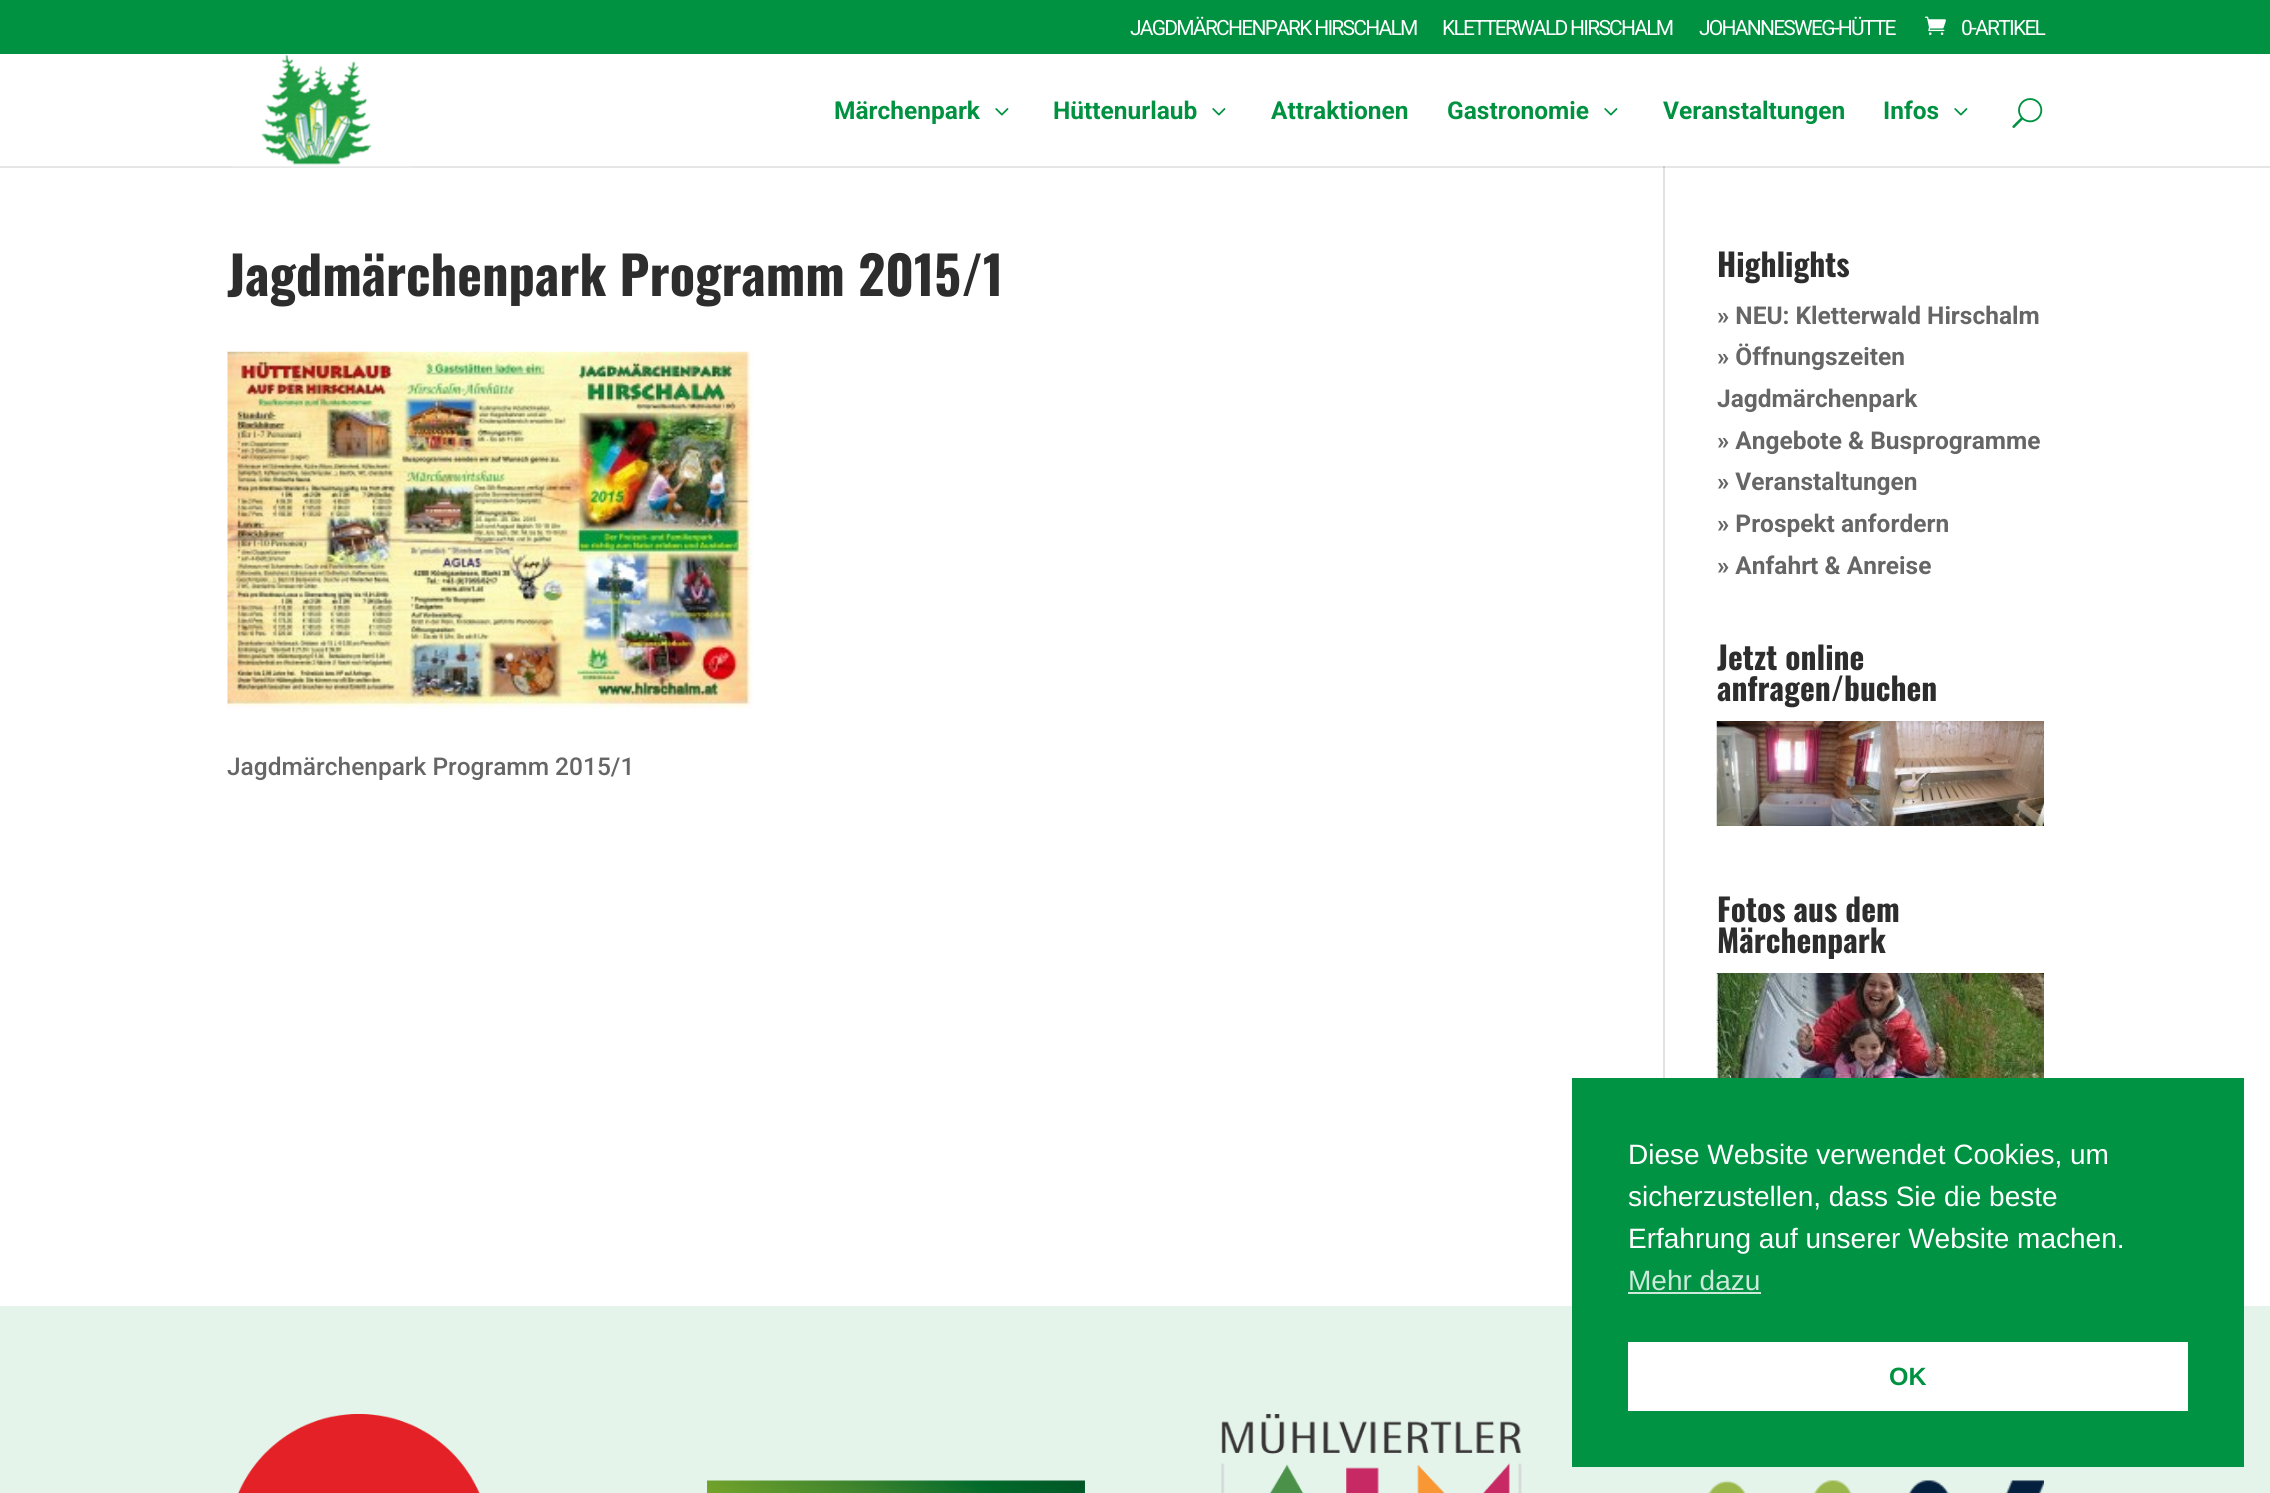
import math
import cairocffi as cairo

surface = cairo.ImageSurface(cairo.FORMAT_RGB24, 2270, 1493)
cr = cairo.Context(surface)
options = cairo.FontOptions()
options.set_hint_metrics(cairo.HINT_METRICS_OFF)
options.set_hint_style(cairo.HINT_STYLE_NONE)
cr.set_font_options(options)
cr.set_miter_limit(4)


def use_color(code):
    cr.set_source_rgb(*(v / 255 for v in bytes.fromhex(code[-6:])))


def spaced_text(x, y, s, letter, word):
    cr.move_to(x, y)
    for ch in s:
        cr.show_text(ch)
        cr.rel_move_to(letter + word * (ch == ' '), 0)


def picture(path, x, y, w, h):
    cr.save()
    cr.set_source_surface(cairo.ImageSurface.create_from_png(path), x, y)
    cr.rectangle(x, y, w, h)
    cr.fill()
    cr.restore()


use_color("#ffffff")
cr.paint()
use_color("#009241")
cr.rectangle(0, 0, 2270, 54)
cr.fill()
cr.select_font_face("Roboto")
cr.set_font_size(21)
use_color("#ffffff")
spaced_text(1130, 35, "JAGDMÄRCHENPARK HIRSCHALM", -1.75, 0)
spaced_text(1442, 35, "KLETTERWALD HIRSCHALM", -1.75, 0)
spaced_text(1699, 35, "JOHANNESWEG-HÜTTE", -1.75, 0)
picture("img1.png", 1925, 16, 21, 19)
spaced_text(1961, 35, "0-ARTIKEL", -1.75, 0)
use_color("#e2e2e2")
cr.rectangle(1663, 166, 2, 912)
cr.fill()
cr.set_source_rgba(0, 0, 0, 0.1)
cr.new_path()
cr.move_to(0, 166)
cr.line_to(0, 168)
cr.line_to(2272, 168)
cr.line_to(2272, 56)
cr.line_to(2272, 166)
cr.close_path()
cr.fill()
picture("img2.png", 233, 54, 178, 113)
cr.select_font_face("Roboto", cairo.FONT_SLANT_NORMAL, cairo.FONT_WEIGHT_BOLD)
cr.set_font_size(24.5)
use_color("#009241")
cr.move_to(834, 119)
cr.show_text("Märchenpark")
picture("img3.png", 995, 108, 14, 8)
cr.move_to(1053, 119)
cr.show_text("Hüttenurlaub")
picture("img3.png", 1212, 108, 14, 8)
cr.move_to(1271, 119)
cr.show_text("Attraktionen")
cr.move_to(1447, 119)
cr.show_text("Gastronomie")
picture("img3.png", 1604, 108, 14, 8)
cr.move_to(1663, 119)
cr.show_text("Veranstaltungen")
cr.move_to(1883, 119)
cr.show_text("Infos")
picture("img3.png", 1954, 108, 14, 8)
picture("img4.png", 2012, 98, 31, 30)
cr.select_font_face("Oswald", cairo.FONT_SLANT_NORMAL, cairo.FONT_WEIGHT_BOLD)
cr.set_font_size(52.5)
use_color("#2d2d2d")
cr.move_to(227, 296)
cr.show_text("Jagdmärchenpark Programm 2015/1")
picture("img5.png", 227, 351, 526, 358)
cr.select_font_face("Roboto Medium")
cr.set_font_size(24.5)
use_color("#666666")
cr.move_to(227, 775)
cr.show_text("Jagdmärchenpark Programm 2015/1")
cr.select_font_face("Oswald", cairo.FONT_SLANT_NORMAL, cairo.FONT_WEIGHT_BOLD)
cr.set_font_size(31.5)
use_color("#2d2d2d")
cr.move_to(1717, 277)
cr.show_text("Highlights")
cr.select_font_face("Roboto", cairo.FONT_SLANT_NORMAL, cairo.FONT_WEIGHT_BOLD)
cr.set_font_size(24.5)
use_color("#666666")
cr.move_to(1717, 324)
cr.show_text("» NEU: Kletterwald Hirschalm")
cr.move_to(1717, 365)
cr.show_text("» Öffnungszeiten")
cr.move_to(1717, 407)
cr.show_text("Jagdmärchenpark")
cr.move_to(1717, 449)
cr.show_text("» Angebote & Busprogramme")
cr.move_to(1717, 490)
cr.show_text("» Veranstaltungen")
cr.move_to(1717, 532)
cr.show_text("» Prospekt anfordern")
cr.move_to(1717, 574)
cr.show_text("» Anfahrt & Anreise")
cr.select_font_face("Oswald", cairo.FONT_SLANT_NORMAL, cairo.FONT_WEIGHT_BOLD)
cr.set_font_size(31.5)
use_color("#2d2d2d")
cr.move_to(1717, 670)
cr.show_text("Jetzt online")
cr.move_to(1717, 701)
cr.show_text("anfragen/buchen")
picture("img6.png", 1716, 721, 328, 105)
cr.move_to(1717, 922)
cr.show_text("Fotos aus dem")
cr.move_to(1717, 953)
cr.show_text("Märchenpark")
picture("img7.png", 1716, 973, 328, 105)
use_color("#e4f4eb")
cr.rectangle(0, 1306, 2270, 187)
cr.fill()
picture("img8.png", 238, 1414, 242, 79)
picture("img9.png", 707, 1480, 378, 13)
picture("img10.png", 1221, 1414, 301, 79)
picture("img11.png", 1708, 1480, 336, 13)
use_color("#009344")
cr.rectangle(1572, 1078, 672, 389)
cr.fill()
cr.select_font_face("Liberation Sans")
cr.set_font_size(28)
use_color("#ffffff")
cr.move_to(1628, 1164)
cr.show_text("Diese Website verwendet Cookies, um")
cr.move_to(1628, 1206)
cr.show_text("sicherzustellen, dass Sie die beste")
cr.move_to(1628, 1248)
cr.show_text("Erfahrung auf unserer Website machen.")
use_color("#cce9da")
cr.move_to(1628, 1290)
cr.show_text("Mehr dazu")
cr.rectangle(1628, 1292, 133, 2)
cr.fill()
use_color("#ffffff")
cr.rectangle(1628, 1342, 560, 69)
cr.fill()
cr.select_font_face("Liberation Sans", cairo.FONT_SLANT_NORMAL, cairo.FONT_WEIGHT_BOLD)
cr.set_font_size(25)
use_color("#009241")
cr.move_to(1889, 1385)
cr.show_text("OK")
surface.write_to_png("result.png")
